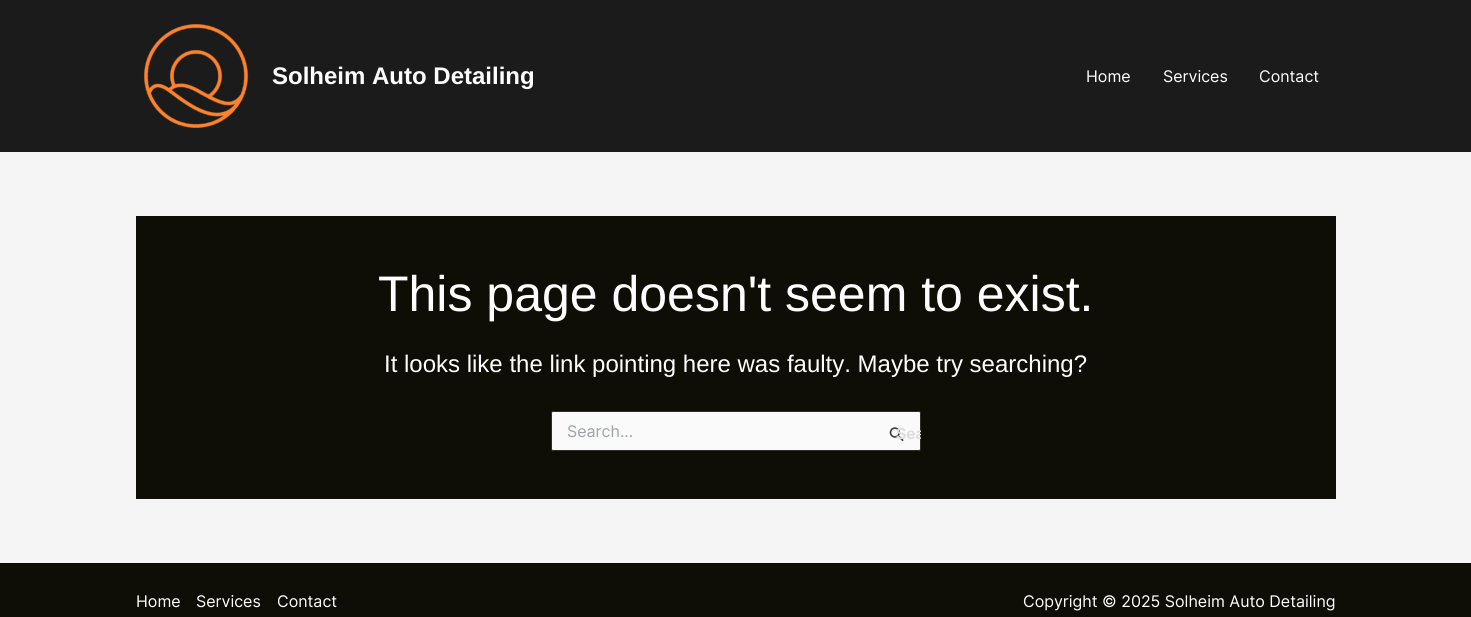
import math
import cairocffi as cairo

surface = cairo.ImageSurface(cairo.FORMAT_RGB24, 1471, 617)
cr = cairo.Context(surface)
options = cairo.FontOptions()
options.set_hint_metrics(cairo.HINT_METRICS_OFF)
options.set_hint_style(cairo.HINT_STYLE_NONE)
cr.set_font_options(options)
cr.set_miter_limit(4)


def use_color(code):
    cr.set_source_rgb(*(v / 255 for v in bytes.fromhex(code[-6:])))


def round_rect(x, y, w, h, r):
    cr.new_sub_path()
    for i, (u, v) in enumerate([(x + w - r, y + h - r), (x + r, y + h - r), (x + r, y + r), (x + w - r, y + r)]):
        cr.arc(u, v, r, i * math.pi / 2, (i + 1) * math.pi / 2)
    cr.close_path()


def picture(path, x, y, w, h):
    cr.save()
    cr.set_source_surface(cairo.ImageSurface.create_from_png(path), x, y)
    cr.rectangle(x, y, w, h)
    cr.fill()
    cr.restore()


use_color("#f5f5f5")
cr.paint()
use_color("#1b1b1b")
cr.rectangle(0, 0, 1471, 152)
cr.fill()
picture("img1.png", 143, 23, 106, 106)
cr.select_font_face("Liberation Sans", cairo.FONT_SLANT_NORMAL, cairo.FONT_WEIGHT_BOLD)
cr.set_font_size(24)
use_color("#ffffff")
cr.move_to(272, 84)
cr.show_text("Solheim Auto Detailing")
cr.select_font_face("Inter")
cr.set_font_size(16)
cr.move_to(1086, 82)
cr.show_text("Home")
cr.move_to(1163, 82)
cr.show_text("Services")
cr.move_to(1259, 82)
cr.show_text("Contact")
use_color("#0e0d06")
cr.rectangle(136, 216, 1200, 283)
cr.fill()
cr.select_font_face("Liberation Sans")
cr.set_font_size(50)
use_color("#ffffff")
cr.move_to(378, 311)
cr.show_text("This page doesn't seem to exist.")
cr.set_font_size(24)
cr.move_to(384, 372)
cr.show_text("It looks like the link pointing here was faulty. Maybe try searching?")
use_color("#fafafa")
round_rect(551.5, 411.5, 369, 39, 1.5)
cr.fill_preserve()
use_color("#2e2d2a")
cr.set_line_width(1)
cr.stroke()
cr.select_font_face("Inter")
cr.set_font_size(16)
use_color("#9ca3af")
cr.move_to(567, 437)
cr.show_text("Search...")
picture("img2.png", 889, 427, 15, 15)
cr.save()
round_rect(876, 411, 45, 47, 2)
cr.clip()
cr.select_font_face("Rubik Medium")
use_color("#dcdcdc")
cr.move_to(896, 439)
cr.show_text("Sea")
cr.restore()
use_color("#0e0d06")
cr.rectangle(0, 563, 1471, 54)
cr.fill()
use_color("#ffffff")
cr.move_to(136, 607)
cr.show_text("Home")
cr.move_to(196, 607)
cr.show_text("Services")
cr.move_to(277, 607)
cr.show_text("Contact")
cr.move_to(1023, 607)
cr.show_text("Copyright © 2025 Solheim Auto Detailing")
surface.write_to_png("result.png")
